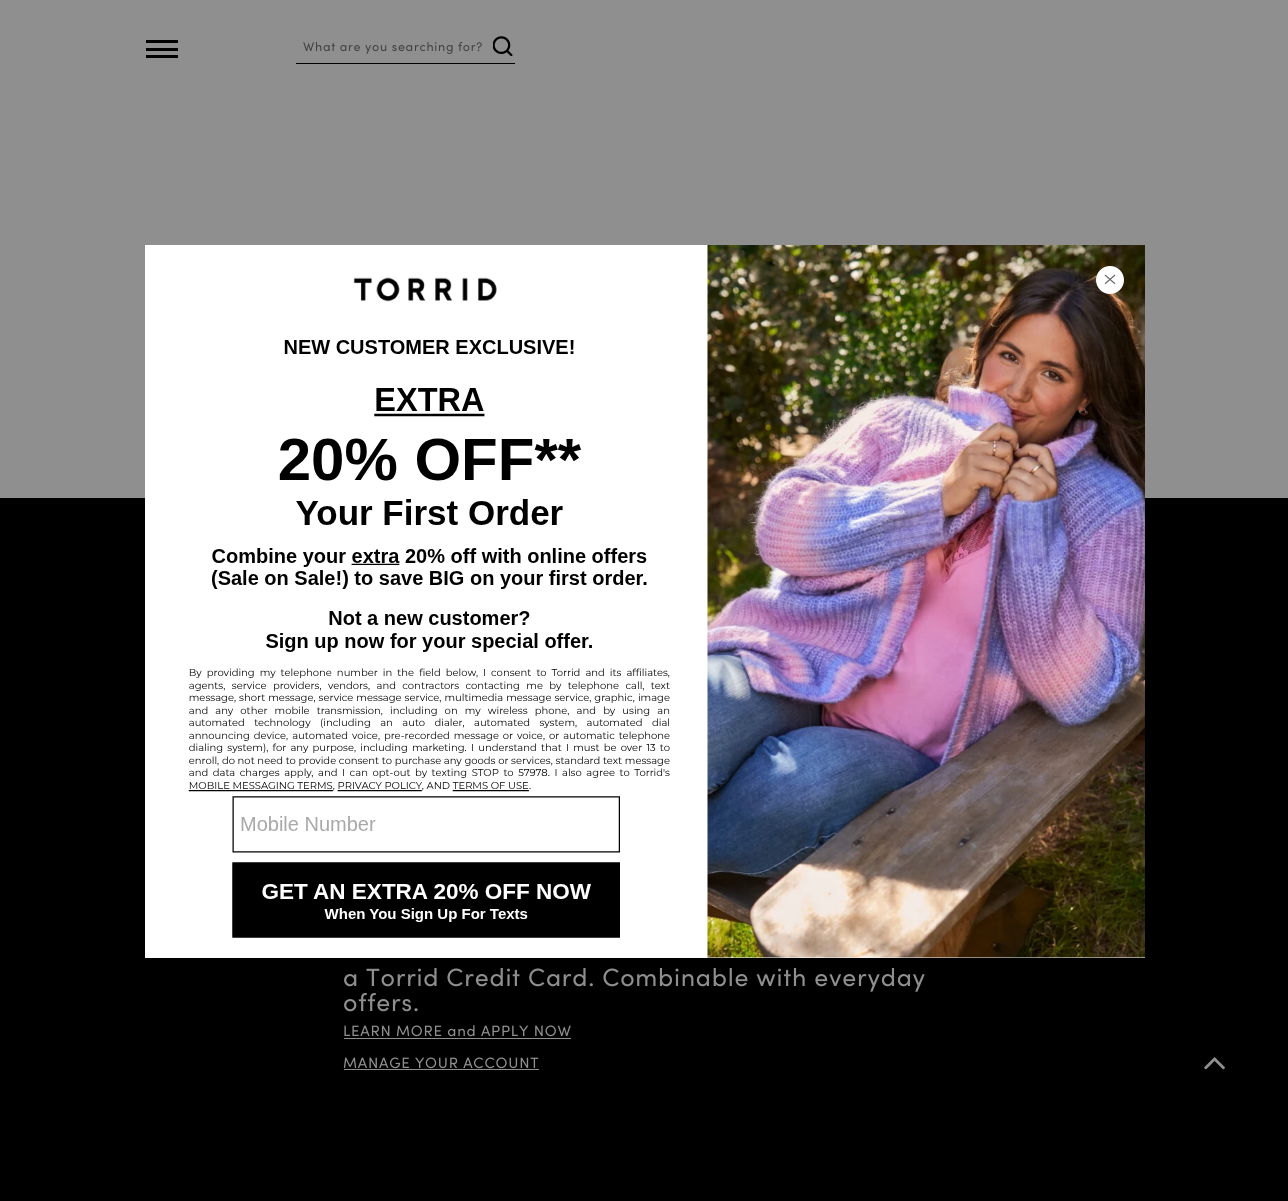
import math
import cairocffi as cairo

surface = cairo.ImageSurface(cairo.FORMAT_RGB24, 1288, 1201)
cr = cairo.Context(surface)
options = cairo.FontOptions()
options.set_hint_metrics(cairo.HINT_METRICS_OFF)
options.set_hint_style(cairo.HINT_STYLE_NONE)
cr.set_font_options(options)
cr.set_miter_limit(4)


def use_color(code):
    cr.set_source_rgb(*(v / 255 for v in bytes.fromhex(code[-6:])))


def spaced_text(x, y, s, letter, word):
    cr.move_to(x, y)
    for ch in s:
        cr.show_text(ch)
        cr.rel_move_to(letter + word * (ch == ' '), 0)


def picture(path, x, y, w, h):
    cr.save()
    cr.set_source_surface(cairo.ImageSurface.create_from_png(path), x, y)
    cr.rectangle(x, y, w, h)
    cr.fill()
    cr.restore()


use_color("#8f8f8f")
cr.paint()
use_color("#000000")
cr.rectangle(146, 40, 32, 3)
cr.fill()
cr.rectangle(146, 48, 32, 3)
cr.fill()
cr.rectangle(146, 55, 32, 3)
cr.fill()
cr.rectangle(296, 63, 219, 1)
cr.fill()
cr.select_font_face("Sofia")
cr.set_font_size(12.5)
use_color("#424242")
spaced_text(303, 51, "What are you searching for?", 0.7, 0)
picture("img1.png", 493, 36, 20, 20)
use_color("#000000")
cr.rectangle(0, 498, 1288, 703)
cr.fill()
cr.set_font_size(25)
use_color("#8f8f8f")
spaced_text(343, 986, "a Torrid Credit Card. Combinable with everyday", 0.75, 0)
spaced_text(343, 1011, "offers.", 0.75, 0)
cr.set_font_size(15)
spaced_text(343, 1036, "LEARN MORE and APPLY NOW", 0.75, 0)
cr.rectangle(344, 1038, 227, 1)
cr.fill()
spaced_text(343, 1068, "MANAGE YOUR ACCOUNT", 0.75, 0)
cr.rectangle(344, 1069, 195, 1)
cr.fill()
picture("img2.png", 1204, 1057, 21, 13)
picture("img3.png", 145, 245, 1000, 713)
picture("img4.png", 1096, 266, 28, 28)
surface.write_to_png("result.png")
